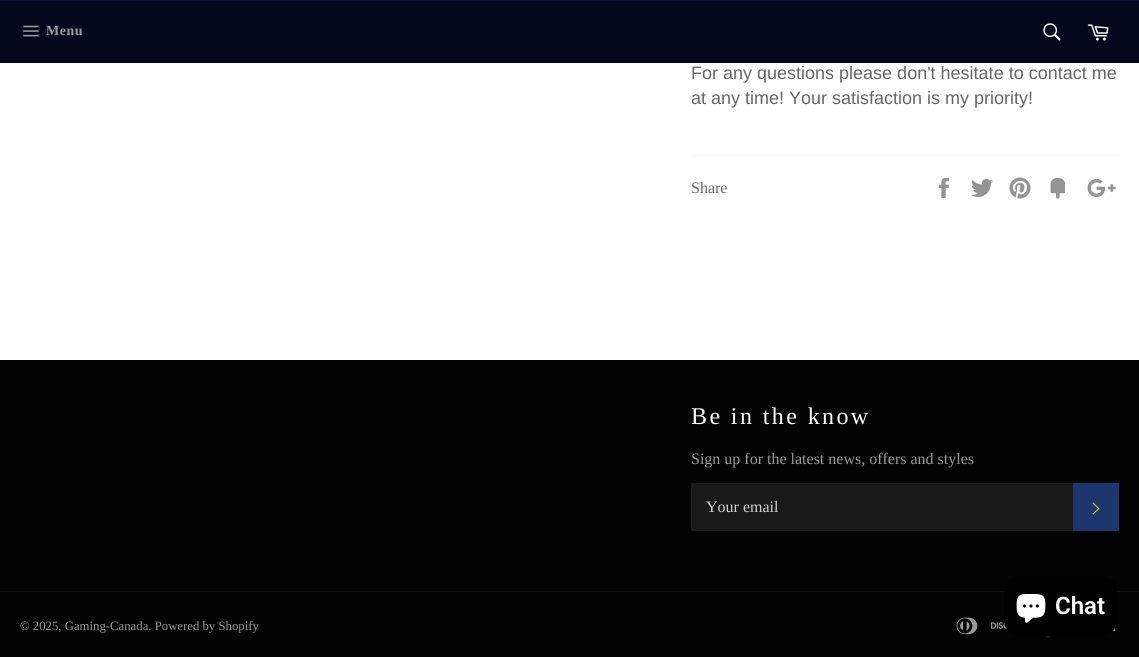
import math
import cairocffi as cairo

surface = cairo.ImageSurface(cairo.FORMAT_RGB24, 1139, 657)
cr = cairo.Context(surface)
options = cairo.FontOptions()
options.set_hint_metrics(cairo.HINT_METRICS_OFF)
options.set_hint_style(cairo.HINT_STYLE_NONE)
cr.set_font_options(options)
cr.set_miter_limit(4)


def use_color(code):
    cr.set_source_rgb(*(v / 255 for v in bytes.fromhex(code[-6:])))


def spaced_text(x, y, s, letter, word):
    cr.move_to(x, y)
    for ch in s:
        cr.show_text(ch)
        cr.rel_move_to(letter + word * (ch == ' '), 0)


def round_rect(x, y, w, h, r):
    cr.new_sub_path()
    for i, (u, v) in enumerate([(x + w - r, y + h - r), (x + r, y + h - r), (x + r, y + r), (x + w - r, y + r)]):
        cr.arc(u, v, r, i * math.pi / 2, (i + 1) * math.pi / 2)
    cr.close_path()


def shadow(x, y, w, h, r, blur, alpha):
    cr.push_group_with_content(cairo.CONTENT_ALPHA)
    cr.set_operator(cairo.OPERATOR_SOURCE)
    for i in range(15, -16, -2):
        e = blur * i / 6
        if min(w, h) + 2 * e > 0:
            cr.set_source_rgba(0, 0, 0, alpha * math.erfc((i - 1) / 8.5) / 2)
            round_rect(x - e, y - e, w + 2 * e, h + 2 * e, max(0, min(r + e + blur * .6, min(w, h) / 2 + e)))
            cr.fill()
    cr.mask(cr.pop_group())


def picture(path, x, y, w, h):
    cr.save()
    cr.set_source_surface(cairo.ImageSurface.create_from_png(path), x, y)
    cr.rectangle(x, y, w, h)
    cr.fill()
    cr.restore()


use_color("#ffffff")
cr.paint()
use_color("#03091c")
cr.rectangle(0, 1, 1139, 62)
cr.fill()
use_color("#051033")
cr.rectangle(0, 0, 1139, 1)
cr.fill()
picture("img1.png", 23, 25, 16, 12)
cr.select_font_face("Liberation Serif", cairo.FONT_SLANT_NORMAL, cairo.FONT_WEIGHT_BOLD)
cr.set_font_size(14)
use_color("#9a9da4")
spaced_text(46, 35, "Menu", 0.5, 0)
picture("img2.png", 1043, 23, 18, 18)
picture("img3.png", 1087, 24, 22, 17)
cr.select_font_face("Liberation Sans")
cr.set_font_size(18)
use_color("#666666")
cr.move_to(691, 79)
cr.show_text("For any questions please don't hesitate to contact me")
cr.move_to(691, 104)
cr.show_text("at any time! Your satisfaction is my priority!")
use_color("#f7f7f7")
cr.rectangle(691, 155, 428, 1)
cr.fill()
cr.select_font_face("Liberation Serif")
cr.set_font_size(16)
use_color("#666666")
cr.move_to(691, 193)
cr.show_text("Share")
picture("img4.png", 939, 178, 10, 20)
picture("img5.png", 971, 179, 22, 18)
picture("img6.png", 1009, 177, 22, 22)
picture("img7.png", 1050, 177, 16, 22)
picture("img8.png", 1087, 179, 29, 18)
use_color("#030303")
cr.rectangle(0, 360, 1139, 297)
cr.fill()
cr.set_font_size(24)
use_color("#ffffff")
spaced_text(691, 424, "Be in the know", 2.4, 0)
cr.set_font_size(16)
use_color("#9a9a9a")
cr.move_to(691, 464)
cr.show_text("Sign up for the latest news, offers and styles")
use_color("#1a1a1a")
cr.rectangle(691, 483, 382, 48)
cr.fill()
use_color("#d1d1d1")
cr.move_to(706, 512)
cr.show_text("Your email")
use_color("#1d376e")
cr.rectangle(1073, 483, 46, 48)
cr.fill()
picture("img9.png", 1092, 502, 8, 13)
use_color("#101010")
cr.rectangle(0, 591, 1139, 1)
cr.fill()
cr.set_font_size(12.75)
use_color("#9a9a9a")
cr.move_to(20, 630)
cr.show_text("© 2025, Gaming-Canada. Powered by Shopify")
picture("img10.png", 956, 617, 22, 18)
picture("img11.png", 991, 622, 16, 7)
picture("img12.png", 1112, 627, 4, 4)
picture("img13.png", 1046, 636, 4, 1)
use_color("#000000")
shadow(1004, 576, 113, 60, 16, 2.5, 0.15)
use_color("#000000")
round_rect(1004, 576, 113, 60, 16)
cr.fill()
picture("img14.png", 1016, 594, 30, 29)
cr.select_font_face("Roboto SemiBold")
cr.set_font_size(24)
use_color("#ffffff")
cr.move_to(1055, 614)
cr.show_text("Chat")
surface.write_to_png("result.png")
